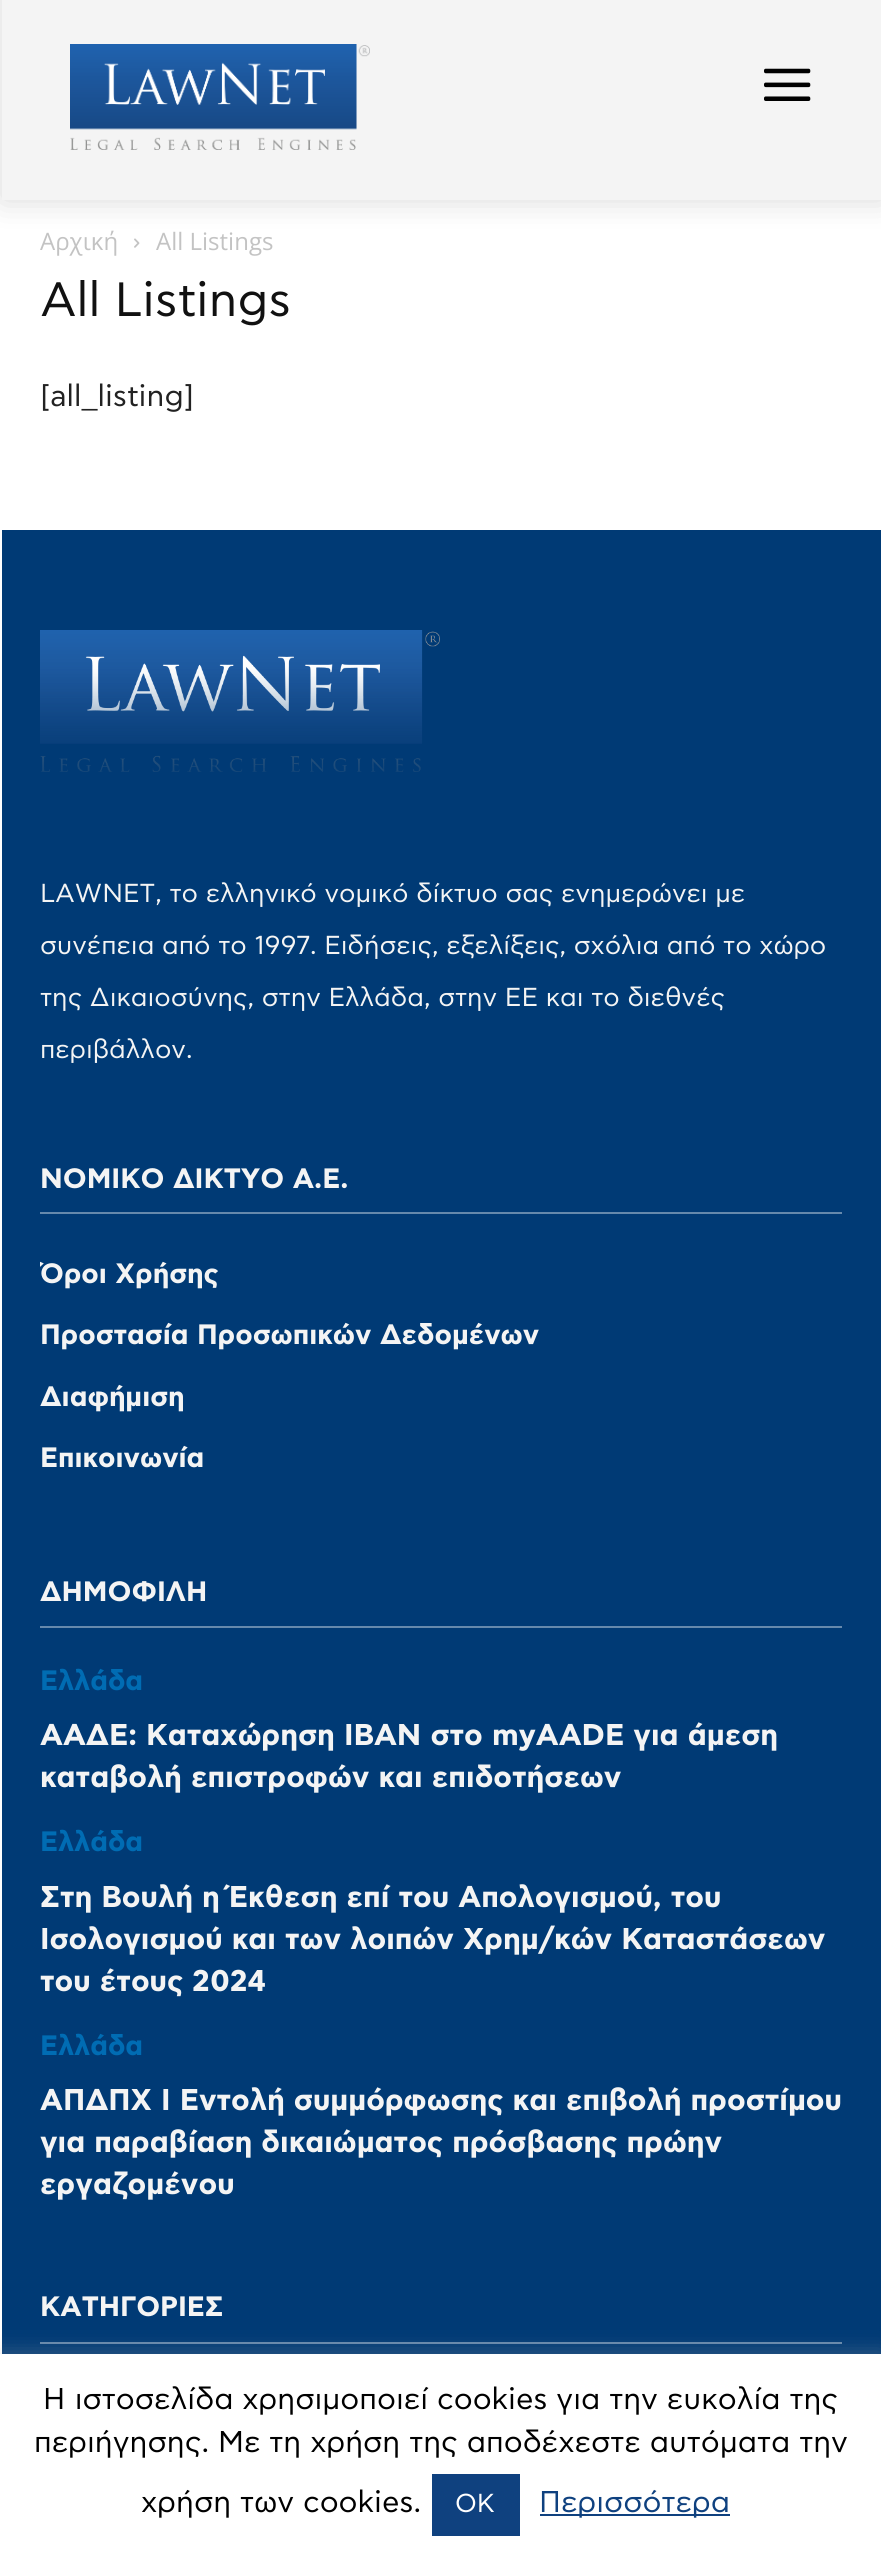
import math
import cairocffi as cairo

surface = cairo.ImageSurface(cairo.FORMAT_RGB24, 881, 2570)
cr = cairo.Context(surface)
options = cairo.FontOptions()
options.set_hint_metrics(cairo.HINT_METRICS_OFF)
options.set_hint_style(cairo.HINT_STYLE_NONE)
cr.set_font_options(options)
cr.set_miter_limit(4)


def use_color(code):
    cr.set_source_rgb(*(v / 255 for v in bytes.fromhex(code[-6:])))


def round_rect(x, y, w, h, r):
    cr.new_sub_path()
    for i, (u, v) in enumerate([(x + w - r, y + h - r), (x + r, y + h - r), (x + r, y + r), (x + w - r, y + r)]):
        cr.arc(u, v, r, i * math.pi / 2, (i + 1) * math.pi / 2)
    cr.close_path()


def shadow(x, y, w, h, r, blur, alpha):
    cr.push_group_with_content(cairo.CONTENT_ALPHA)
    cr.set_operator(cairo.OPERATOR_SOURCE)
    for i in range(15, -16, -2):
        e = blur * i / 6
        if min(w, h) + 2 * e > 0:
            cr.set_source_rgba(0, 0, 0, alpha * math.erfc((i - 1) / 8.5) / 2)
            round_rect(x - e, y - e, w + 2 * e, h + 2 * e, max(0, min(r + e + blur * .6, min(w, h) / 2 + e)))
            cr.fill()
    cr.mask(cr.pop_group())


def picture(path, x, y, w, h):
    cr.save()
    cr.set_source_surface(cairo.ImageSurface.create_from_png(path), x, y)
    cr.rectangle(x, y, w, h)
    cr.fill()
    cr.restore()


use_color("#ffffff")
cr.paint()
use_color("#f4f4f4")
cr.rectangle(2, 0, 879, 200)
cr.fill()
picture("img1.png", 70, 44, 300, 106)
picture("img2.png", 764, 68, 47, 33)
picture("img3.png", 134, 238, 6, 10)
cr.save()
cr.set_fill_rule(cairo.FILL_RULE_EVEN_ODD)
cr.new_path()
cr.move_to(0, 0)
cr.line_to(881, 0)
cr.line_to(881, 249)
cr.line_to(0, 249)
cr.close_path()
cr.move_to(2, -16)
cr.line_to(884, -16)
cr.line_to(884, 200)
cr.line_to(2, 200)
cr.close_path()
cr.clip()
use_color("#000000")
shadow(2, -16, 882, 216, 0, 16, 0.15)
cr.restore()
cr.select_font_face("Open Sans")
cr.set_font_size(24)
use_color("#c3c3c3")
cr.move_to(40, 250)
cr.show_text("Αρχική")
cr.move_to(156, 250)
cr.show_text("All Listings")
cr.select_font_face("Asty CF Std")
cr.set_font_size(48)
use_color("#111111")
cr.move_to(40, 316)
cr.show_text("All Listings")
cr.set_font_size(30)
use_color("#222222")
cr.move_to(40, 406)
cr.show_text("[all_listing]")
use_color("#003a75")
cr.rectangle(2, 530, 879, 1824)
cr.fill()
picture("img4.png", 40, 630, 400, 142)
cr.set_font_size(26)
use_color("#f4f4f4")
cr.move_to(40, 902)
cr.show_text("LAWNET, το ελληνικό νομικό δίκτυο σας ενημερώνει με")
cr.move_to(40, 954)
cr.show_text("συνέπεια από το 1997. Ειδήσεις, εξελίξεις, σχόλια από το χώρο")
cr.move_to(40, 1006)
cr.show_text("της Δικαιοσύνης, στην Ελλάδα, στην ΕΕ και το διεθνές")
cr.move_to(40, 1058)
cr.show_text("περιβάλλον.")
use_color("#6689ac")
cr.rectangle(40, 1212, 802, 2)
cr.fill()
cr.select_font_face("Asty CF Std", cairo.FONT_SLANT_NORMAL, cairo.FONT_WEIGHT_BOLD)
cr.set_font_size(28)
use_color("#f4f4f4")
cr.move_to(40, 1188)
cr.show_text("ΝΟΜΙΚΟ ΔΙΚΤΥΟ Α.Ε.")
cr.save()
cr.rectangle(40, 1244, 802, 246)
cr.clip()
cr.move_to(40, 1283)
cr.show_text("Όροι Χρήσης")
cr.restore()
cr.move_to(40, 1344)
cr.show_text("Προστασία Προσωπικών Δεδομένων")
cr.move_to(40, 1406)
cr.show_text("Διαφήμιση")
cr.move_to(40, 1467)
cr.show_text("Επικοινωνία")
use_color("#6689ac")
cr.rectangle(40, 1626, 802, 2)
cr.fill()
use_color("#f4f4f4")
cr.move_to(40, 1601)
cr.show_text("ΔΗΜΟΦΙΛΗ")
use_color("#006cb3")
cr.move_to(40, 1690)
cr.show_text("Ελλάδα")
cr.set_font_size(30)
use_color("#f4f4f4")
cr.move_to(40, 1745)
cr.show_text("ΑΑΔΕ: Καταχώρηση ΙΒΑΝ στο myAADE για άμεση")
cr.move_to(40, 1787)
cr.show_text("καταβολή επιστροφών και επιδοτήσεων")
cr.set_font_size(28)
use_color("#006cb3")
cr.move_to(40, 1851)
cr.show_text("Ελλάδα")
cr.set_font_size(30)
use_color("#f4f4f4")
cr.move_to(40, 1907)
cr.show_text("Στη Βουλή η Έκθεση επί του Απολογισμού, του")
cr.move_to(40, 1949)
cr.show_text("Ισολογισμού και των λοιπών Χρημ/κών Καταστάσεων")
cr.move_to(40, 1991)
cr.show_text("του έτους 2024")
cr.set_font_size(28)
use_color("#006cb3")
cr.move_to(40, 2055)
cr.show_text("Ελλάδα")
cr.set_font_size(30)
use_color("#f4f4f4")
cr.move_to(40, 2110)
cr.show_text("ΑΠΔΠΧ Ι Εντολή συμμόρφωσης και επιβολή προστίμου")
cr.move_to(40, 2152)
cr.show_text("για παραβίαση δικαιώματος πρόσβασης πρώην")
cr.move_to(40, 2194)
cr.show_text("εργαζομένου")
use_color("#6689ac")
cr.rectangle(40, 2342, 802, 2)
cr.fill()
cr.set_font_size(28)
use_color("#f4f4f4")
cr.move_to(40, 2316)
cr.show_text("ΚΑΤΗΓΟΡΙΕΣ")
use_color("#acabab")
shadow(0, 2352, 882, 216, 0, 10, 0.3)
use_color("#ffffff")
cr.rectangle(0, 2354, 881, 216)
cr.fill()
cr.select_font_face("Asty CF Std")
cr.set_font_size(30)
use_color("#000000")
cr.move_to(43, 2409)
cr.show_text("Η ιστοσελίδα χρησιμοποιεί cookies για την ευκολία της")
cr.move_to(34, 2452)
cr.show_text("περιήγησης. Με τη χρήση της αποδέχεστε αυτόματα την")
cr.move_to(141, 2512)
cr.show_text("χρήση των cookies.")
use_color("#0f417f")
cr.rectangle(432, 2474, 88, 62)
cr.fill()
cr.set_font_size(26)
use_color("#ffffff")
cr.move_to(455, 2512)
cr.show_text("OK")
use_color("#0f417f")
cr.rectangle(540, 2514, 190, 2)
cr.fill()
cr.set_font_size(30)
cr.move_to(539, 2512)
cr.show_text("Περισσότερα")
surface.write_to_png("result.png")
